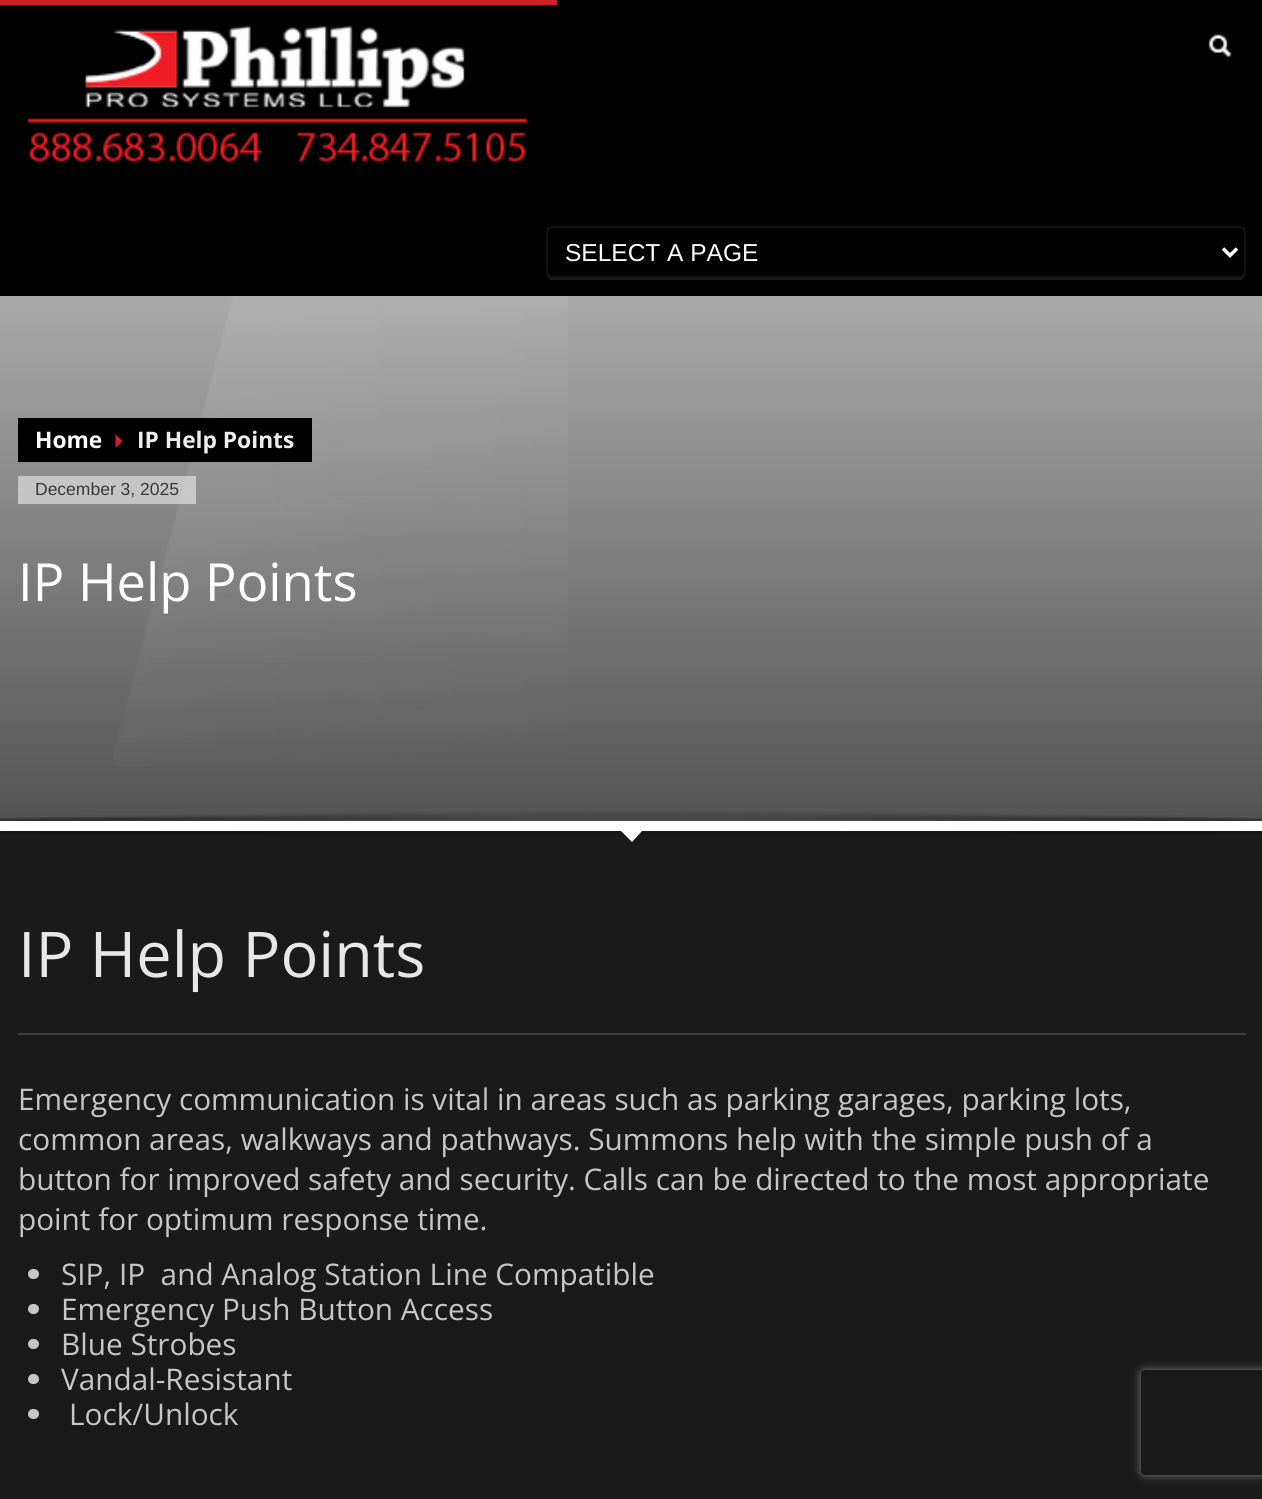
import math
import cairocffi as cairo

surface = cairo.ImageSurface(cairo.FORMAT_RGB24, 1262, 1499)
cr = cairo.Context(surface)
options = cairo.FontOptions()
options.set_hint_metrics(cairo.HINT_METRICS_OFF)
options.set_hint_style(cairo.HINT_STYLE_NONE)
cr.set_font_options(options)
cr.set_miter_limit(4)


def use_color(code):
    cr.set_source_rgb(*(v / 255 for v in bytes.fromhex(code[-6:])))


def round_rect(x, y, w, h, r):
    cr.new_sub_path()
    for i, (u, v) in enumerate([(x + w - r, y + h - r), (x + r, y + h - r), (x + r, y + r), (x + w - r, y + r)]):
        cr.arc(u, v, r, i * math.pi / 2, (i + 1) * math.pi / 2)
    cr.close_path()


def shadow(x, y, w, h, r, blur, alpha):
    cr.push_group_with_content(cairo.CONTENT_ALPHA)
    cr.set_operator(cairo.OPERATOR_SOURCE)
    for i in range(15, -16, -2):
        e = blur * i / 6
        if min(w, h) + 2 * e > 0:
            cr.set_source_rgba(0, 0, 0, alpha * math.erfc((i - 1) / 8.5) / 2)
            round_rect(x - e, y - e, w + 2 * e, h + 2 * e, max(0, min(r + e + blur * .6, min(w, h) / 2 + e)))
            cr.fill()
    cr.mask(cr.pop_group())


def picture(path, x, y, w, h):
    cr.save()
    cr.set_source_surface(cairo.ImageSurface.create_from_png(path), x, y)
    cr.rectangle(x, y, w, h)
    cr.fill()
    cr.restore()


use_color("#1a1a1a")
cr.paint()
use_color("#000000")
cr.rectangle(0, 0, 1262, 296)
cr.fill()
use_color("#cd2122")
cr.rectangle(0, 0, 557, 5)
cr.fill()
picture("img1.png", 27, 26, 501, 136)
picture("img2.png", 1208, 34, 24, 24)
use_color("#1a1a1a")
cr.new_path()
cr.move_to(546, 271)
cr.curve_to(546, 276, 548, 280, 553, 280)
cr.line_to(1239, 280)
cr.curve_to(1244, 280, 1246, 276, 1246, 271)
cr.curve_to(1246, 275, 1243, 278, 1239, 278)
cr.line_to(553, 278)
cr.curve_to(549, 278, 546, 275, 546, 271)
cr.close_path()
cr.fill()
round_rect(547, 227, 698, 50, 6)
use_color("#111111")
cr.stroke()
cr.new_path()
cr.move_to(1223, 248.5)
cr.line_to(1230, 255.5)
cr.line_to(1237, 248.5)
use_color("#ffffff")
cr.set_line_width(3.5)
cr.stroke()
cr.select_font_face("Liberation Sans")
cr.set_font_size(24.5)
cr.move_to(565, 261)
cr.show_text("SELECT A PAGE")
gradient = cairo.LinearGradient(632, 296, 632, 821)
gradient.add_color_stop_rgba(0, 0.663, 0.663, 0.663, 1)
gradient.add_color_stop_rgba(1, 0.329, 0.329, 0.329, 1)
cr.set_source(gradient)
cr.rectangle(0, 296, 1262, 525)
cr.fill()
use_color("#ffffff")
cr.rectangle(0, 821, 1262, 10)
cr.fill()
picture("img3.png", 113, 296, 455, 470)
use_color("#000000")
cr.rectangle(18, 418, 294, 44)
cr.fill()
cr.select_font_face("Open Sans", cairo.FONT_SLANT_NORMAL, cairo.FONT_WEIGHT_BOLD)
cr.set_font_size(22.75)
use_color("#ffffff")
cr.move_to(35, 448)
cr.show_text("Home")
use_color("#cd2122")
cr.new_path()
cr.move_to(115.5, 448)
cr.line_to(115.5, 434)
cr.line_to(122.5, 441)
cr.close_path()
cr.fill()
use_color("#eeeeee")
cr.move_to(137, 448)
cr.show_text("IP Help Points")
cr.set_source_rgba(1, 1, 1, 0.5)
cr.rectangle(18, 476, 178, 28)
cr.fill()
cr.select_font_face("Liberation Sans")
cr.set_font_size(17.5)
use_color("#383838")
cr.move_to(35, 495)
cr.show_text("December 3, 2025")
cr.select_font_face("Open Sans")
cr.set_font_size(52.5)
use_color("#ffffff")
cr.move_to(18, 601)
cr.show_text("IP Help Points")
picture("img4.png", 0, 810, 1262, 11)
picture("img5.png", 0, 831, 1262, 4)
cr.new_path()
cr.move_to(621, 831)
cr.line_to(642, 831)
cr.line_to(632, 842)
cr.close_path()
cr.fill()
use_color("#3f3f3f")
cr.rectangle(18, 1033, 1228, 2)
cr.fill()
cr.set_font_size(63)
use_color("#e7e7e7")
cr.move_to(18, 977)
cr.show_text("IP Help Points")
cr.set_font_size(29.75)
use_color("#c6c6c6")
cr.move_to(18, 1110)
cr.show_text("Emergency communication is vital in areas such as parking garages, parking lots,")
cr.move_to(18, 1150)
cr.show_text("common areas, walkways and pathways. Summons help with the simple push of a")
cr.move_to(18, 1190)
cr.show_text("button for improved safety and security. Calls can be directed to the most appropriate")
cr.move_to(18, 1230)
cr.show_text("point for optimum response time.")
round_rect(28, 1269, 11, 10, 5)
cr.fill()
cr.move_to(61, 1285)
cr.show_text("SIP, IP  and Analog Station Line Compatible")
round_rect(28, 1304, 11, 10, 5)
cr.fill()
cr.move_to(61, 1320)
cr.show_text("Emergency Push Button Access")
round_rect(28, 1339, 11, 10, 5)
cr.fill()
cr.move_to(61, 1355)
cr.show_text("Blue Strobes")
round_rect(28, 1374, 11, 10, 5)
cr.fill()
cr.move_to(61, 1390)
cr.show_text("Vandal-Resistant")
round_rect(28, 1409, 11, 10, 5)
cr.fill()
cr.move_to(69, 1425)
cr.show_text("Lock/Unlock")
cr.save()
cr.set_fill_rule(cairo.FILL_RULE_EVEN_ODD)
cr.new_path()
cr.move_to(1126, 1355)
cr.line_to(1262, 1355)
cr.line_to(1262, 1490)
cr.line_to(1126, 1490)
cr.close_path()
cr.move_to(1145, 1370)
cr.line_to(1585, 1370)
cr.curve_to(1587, 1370, 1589, 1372, 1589, 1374)
cr.line_to(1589, 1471)
cr.curve_to(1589, 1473, 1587, 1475, 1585, 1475)
cr.line_to(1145, 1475)
cr.curve_to(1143, 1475, 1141, 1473, 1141, 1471)
cr.line_to(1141, 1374)
cr.curve_to(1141, 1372, 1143, 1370, 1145, 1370)
cr.close_path()
cr.clip()
use_color("#808080")
shadow(1141, 1370, 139, 105, 4, 4.5, 1)
cr.restore()
surface.write_to_png("result.png")
